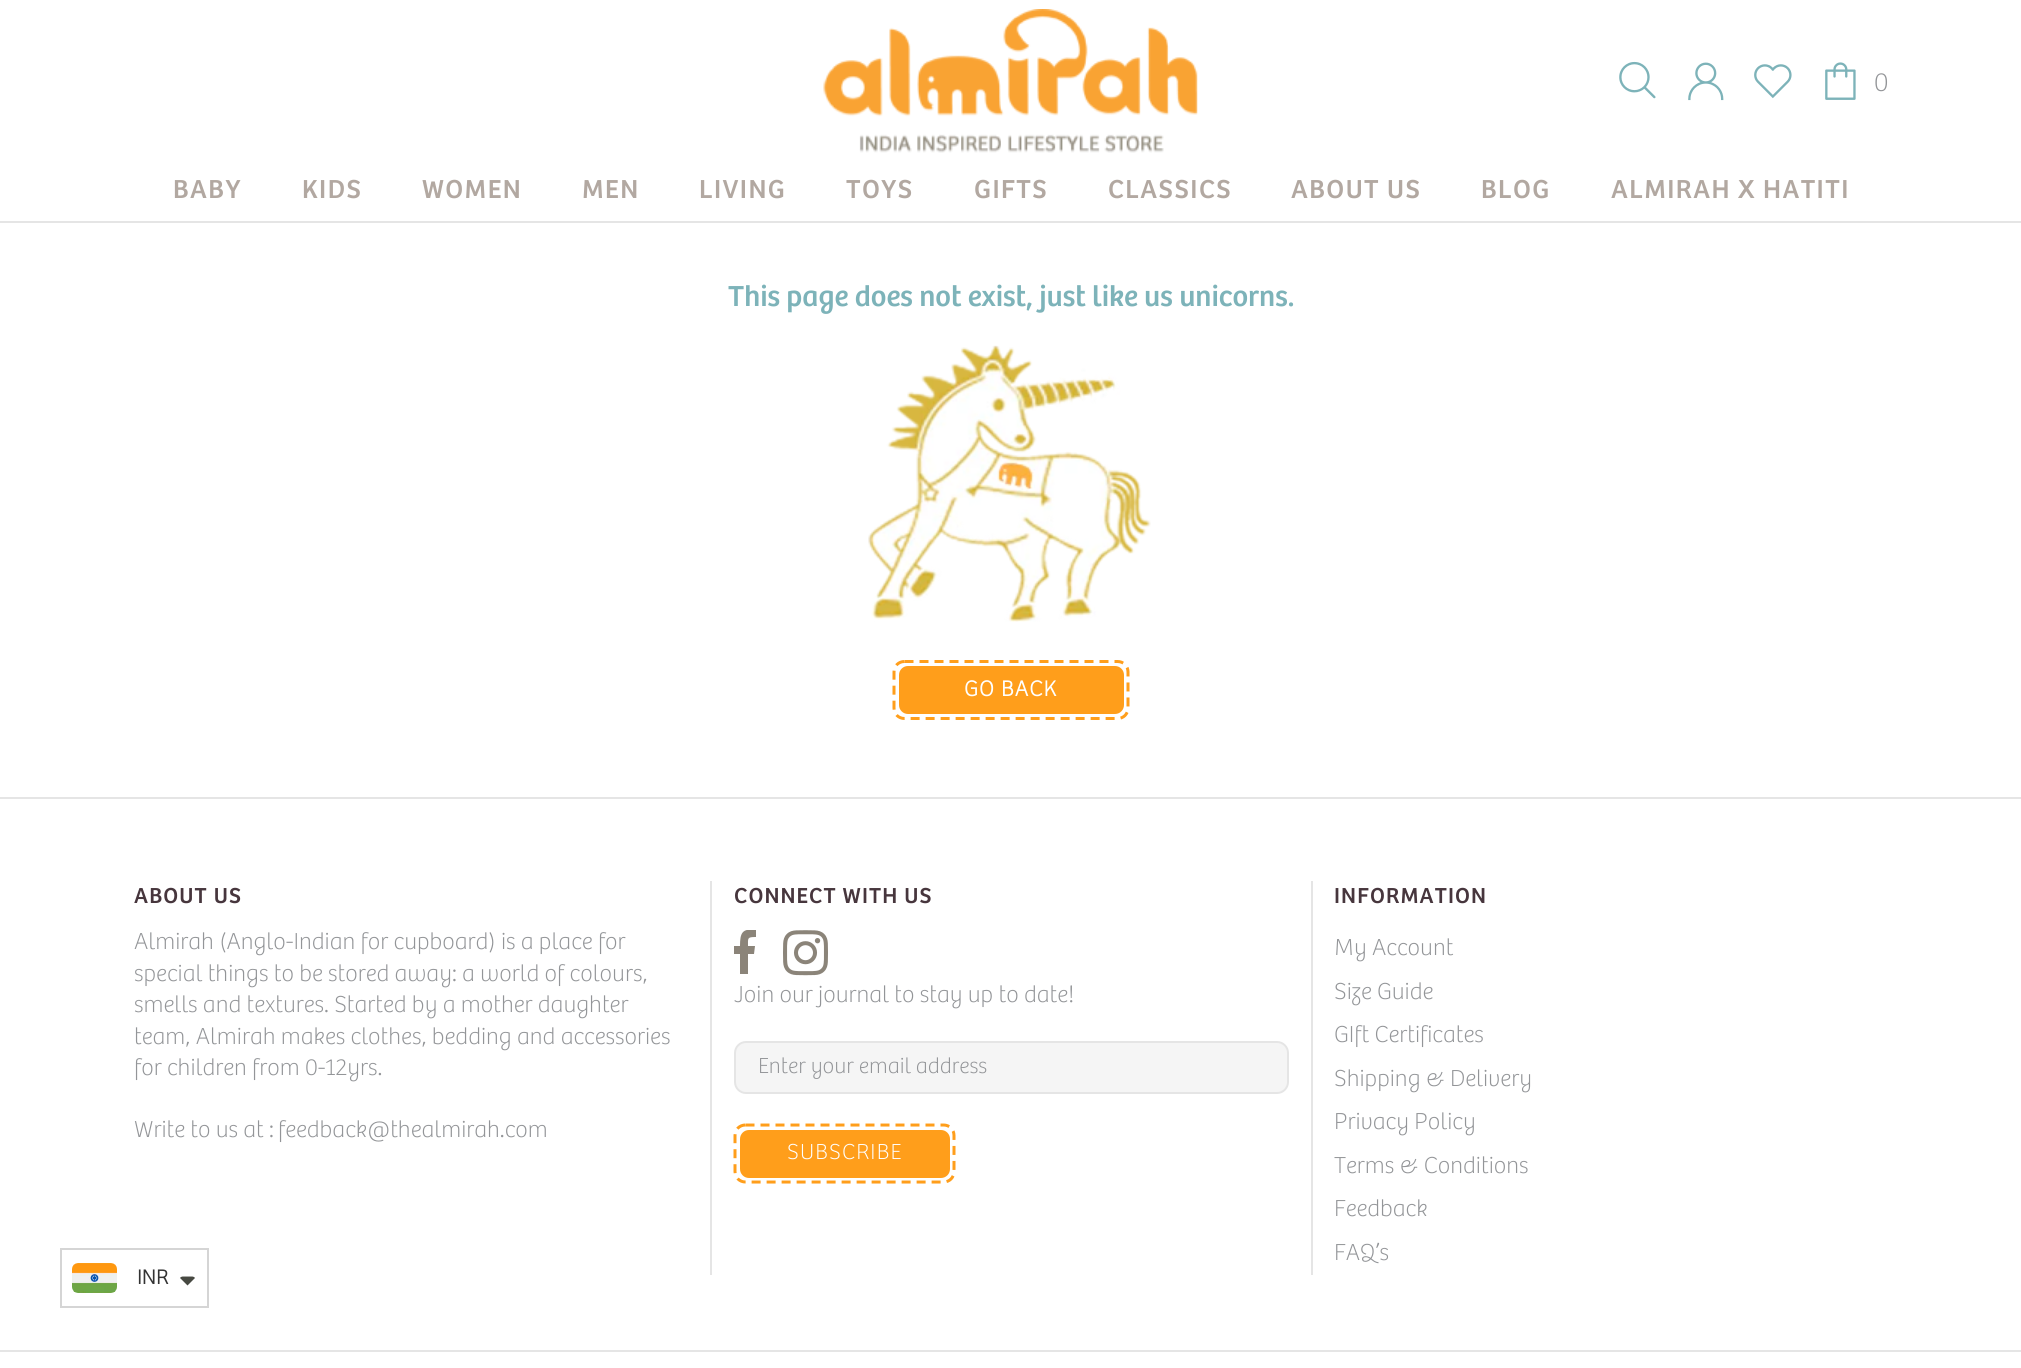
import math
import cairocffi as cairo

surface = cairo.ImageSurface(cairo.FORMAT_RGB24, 2021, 1368)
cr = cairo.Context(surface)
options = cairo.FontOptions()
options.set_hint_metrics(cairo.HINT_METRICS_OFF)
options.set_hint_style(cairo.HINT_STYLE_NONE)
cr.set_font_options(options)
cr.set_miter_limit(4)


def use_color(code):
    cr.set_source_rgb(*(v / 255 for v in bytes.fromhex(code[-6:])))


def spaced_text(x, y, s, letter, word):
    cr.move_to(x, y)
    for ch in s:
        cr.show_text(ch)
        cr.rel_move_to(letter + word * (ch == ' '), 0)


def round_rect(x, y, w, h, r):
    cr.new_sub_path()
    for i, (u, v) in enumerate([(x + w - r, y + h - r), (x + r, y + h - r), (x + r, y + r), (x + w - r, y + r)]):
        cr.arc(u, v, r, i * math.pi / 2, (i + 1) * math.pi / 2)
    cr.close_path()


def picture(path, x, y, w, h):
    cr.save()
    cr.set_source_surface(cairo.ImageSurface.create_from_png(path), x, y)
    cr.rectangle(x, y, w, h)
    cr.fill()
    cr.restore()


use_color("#ffffff")
cr.paint()
picture("img1.png", 823, 9, 375, 144)
picture("img2.png", 1619, 61, 37, 38)
picture("img3.png", 1688, 62, 36, 39)
picture("img4.png", 1754, 64, 38, 35)
picture("img5.png", 1825, 62, 31, 38)
cr.select_font_face("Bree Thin")
cr.set_font_size(27)
use_color("#939598")
cr.move_to(1874, 91)
cr.show_text("0")
use_color("#e5e5e5")
cr.rectangle(0, 221, 2021, 2)
cr.fill()
cr.select_font_face("Bree")
use_color("#b2a8a1")
spaced_text(173, 198, "BABY", 1.4, 0)
spaced_text(302, 198, "KIDS", 1.4, 0)
spaced_text(422, 198, "WOMEN", 1.4, 0)
spaced_text(582, 198, "MEN", 1.4, 0)
spaced_text(699, 198, "LIVING", 1.4, 0)
spaced_text(846, 198, "TOYS", 1.4, 0)
spaced_text(974, 198, "GIFTS", 1.4, 0)
spaced_text(1108, 198, "CLASSICS", 1.4, 0)
spaced_text(1291, 198, "ABOUT US", 1.4, 0)
spaced_text(1481, 198, "BLOG", 1.4, 0)
spaced_text(1611, 198, "ALMIRAH X HATITI", 1.4, 0)
cr.set_font_size(30)
use_color("#7db3b9")
cr.move_to(728, 306)
cr.show_text("This page does not exist, just like us unicorns.")
picture("img6.png", 868, 345, 283, 277)
cr.new_path()
cr.move_to(904.5, 661.5)
cr.line_to(1117.5, 661.5)
cr.curve_to(1123.5, 661.5, 1128, 666, 1128, 672)
cr.line_to(1128, 708)
cr.curve_to(1128, 714, 1123.5, 718.5, 1117.5, 718.5)
cr.line_to(904.5, 718.5)
cr.curve_to(898.5, 718.5, 894, 714, 894, 708)
cr.line_to(894, 672)
cr.curve_to(894, 666, 898.5, 661.5, 904.5, 661.5)
cr.close_path()
use_color("#ff9e1b")
cr.set_line_width(3)
cr.set_dash([9, 6])
cr.stroke()
round_rect(899, 666, 225, 48, 9)
cr.fill()
cr.select_font_face("Bree", cairo.FONT_SLANT_NORMAL, cairo.FONT_WEIGHT_BOLD)
cr.set_font_size(22.5)
use_color("#ffffff")
spaced_text(964, 696, "GO BACK", 1.1, 0)
use_color("#e5e5e5")
cr.rectangle(0, 797, 2021, 2)
cr.fill()
cr.select_font_face("Bree")
use_color("#47363d")
spaced_text(134, 903, "ABOUT US", 1.1, 0)
cr.select_font_face("Bree Thin")
cr.set_font_size(24)
use_color("#939598")
cr.move_to(134, 949)
cr.show_text("Almirah (Anglo-Indian for cupboard) is a place for")
cr.move_to(134, 981)
cr.show_text("special things to be stored away: a world of colours,")
cr.move_to(134, 1012)
cr.show_text("smells and textures. Started by a mother daughter")
cr.move_to(134, 1044)
cr.show_text("team, Almirah makes clothes, bedding and accessories")
cr.move_to(134, 1075)
cr.show_text("for children from 0-12yrs.")
cr.move_to(134, 1137)
cr.show_text("Write to us at :")
cr.move_to(278, 1137)
cr.show_text("feedback@thealmirah.com")
use_color("#e5e5e5")
cr.rectangle(710, 881, 2, 394)
cr.fill()
cr.select_font_face("Bree")
cr.set_font_size(22.5)
use_color("#47363d")
spaced_text(734, 903, "CONNECT WITH US", 1.1, 0)
cr.save()
cr.rectangle(734, 930, 22, 44)
cr.clip()
use_color("#8b8479")
cr.new_path()
cr.move_to(740, 974)
cr.line_to(740, 954)
cr.line_to(734, 954)
cr.line_to(734, 946)
cr.line_to(740, 946)
cr.curve_to(740, 933, 742, 928, 756, 930)
cr.line_to(756, 937)
cr.curve_to(747, 937, 748, 938, 748, 946)
cr.line_to(755, 946)
cr.line_to(754, 954)
cr.line_to(748, 954)
cr.line_to(748, 974)
cr.fill()
cr.restore()
picture("img7.png", 783, 930, 45, 46)
cr.select_font_face("Bree Thin")
cr.set_font_size(24)
use_color("#939598")
cr.move_to(734, 1002)
cr.show_text("Join our journal to stay up to date!")
use_color("#f5f5f5")
round_rect(735, 1042, 553, 51, 11)
cr.fill_preserve()
use_color("#e5e5e5")
cr.set_line_width(2)
cr.set_dash([])
cr.stroke()
cr.set_font_size(22.5)
use_color("#939598")
cr.move_to(758, 1073)
cr.show_text("Enter your email address")
cr.new_path()
cr.move_to(745.5, 1125)
cr.line_to(943.5, 1125)
cr.curve_to(949.5, 1125, 954, 1129.5, 954, 1135.5)
cr.line_to(954, 1171.5)
cr.curve_to(954, 1177.5, 949.5, 1182, 943.5, 1182)
cr.line_to(745.5, 1182)
cr.curve_to(739.5, 1182, 735, 1177.5, 735, 1171.5)
cr.line_to(735, 1135.5)
cr.curve_to(735, 1129.5, 739.5, 1125, 745.5, 1125)
cr.close_path()
use_color("#ff9e1b")
cr.set_line_width(3)
cr.set_dash([9, 6])
cr.stroke()
round_rect(740, 1130, 210, 48, 9)
cr.fill()
use_color("#ffffff")
spaced_text(787, 1159, "SUBSCRIBE", 1.1, 0)
use_color("#e5e5e5")
cr.rectangle(1311, 881, 2, 394)
cr.fill()
cr.select_font_face("Bree")
use_color("#47363d")
spaced_text(1334, 903, "INFORMATION", 1.1, 0)
cr.select_font_face("Bree Thin")
cr.set_font_size(24)
use_color("#939598")
cr.move_to(1334, 955)
cr.show_text("My Account")
cr.move_to(1334, 999)
cr.show_text("Size Guide")
cr.move_to(1334, 1042)
cr.show_text("GIft Certificates")
cr.move_to(1334, 1086)
cr.show_text("Shipping & Delivery")
cr.move_to(1334, 1129)
cr.show_text("Privacy Policy")
cr.move_to(1334, 1173)
cr.show_text("Terms & Conditions")
cr.move_to(1334, 1216)
cr.show_text("Feedback")
cr.move_to(1334, 1260)
cr.show_text("FAQ’s")
use_color("#e5e5e5")
cr.rectangle(0, 1350, 2021, 2)
cr.fill()
cr.rectangle(61, 1249, 147, 58)
use_color("#d5d5d5")
cr.set_line_width(2)
cr.set_dash([])
cr.stroke()
picture("img8.png", 72, 1263, 45, 30)
cr.select_font_face("Bree", cairo.FONT_SLANT_NORMAL, cairo.FONT_WEIGHT_BOLD)
cr.set_font_size(21)
use_color("#333333")
cr.move_to(137, 1284)
cr.show_text("INR")
use_color("#474942")
cr.new_path()
cr.move_to(183, 1276.5)
cr.curve_to(182, 1276.5, 180.5, 1277, 180, 1278)
cr.line_to(187.5, 1285.5)
cr.line_to(195, 1278)
cr.curve_to(194.5, 1277, 193, 1276.5, 192, 1276.5)
cr.close_path()
cr.fill()
surface.write_to_png("result.png")
